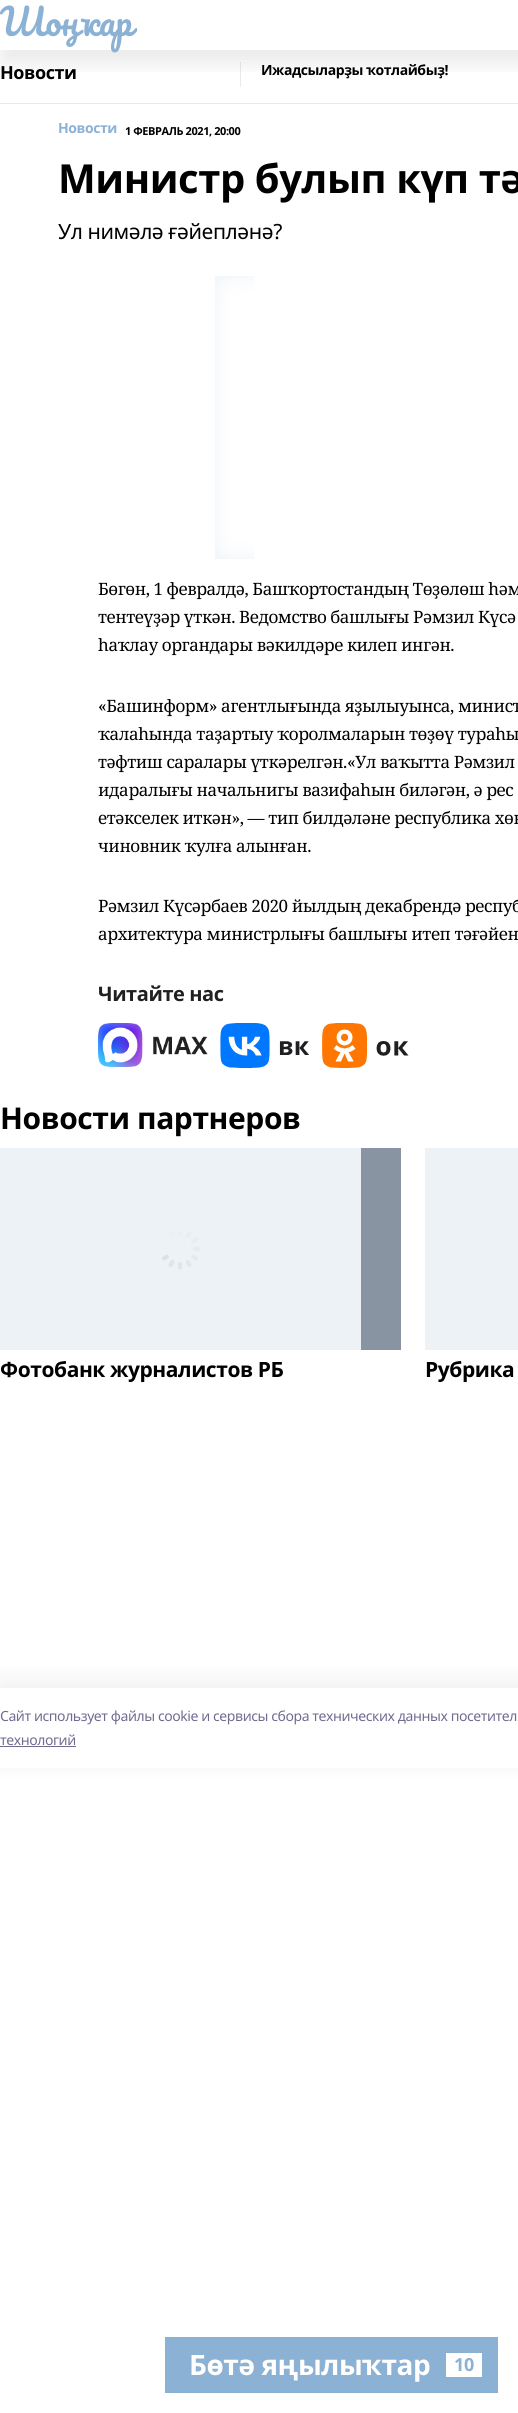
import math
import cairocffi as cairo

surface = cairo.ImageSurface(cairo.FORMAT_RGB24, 518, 2413)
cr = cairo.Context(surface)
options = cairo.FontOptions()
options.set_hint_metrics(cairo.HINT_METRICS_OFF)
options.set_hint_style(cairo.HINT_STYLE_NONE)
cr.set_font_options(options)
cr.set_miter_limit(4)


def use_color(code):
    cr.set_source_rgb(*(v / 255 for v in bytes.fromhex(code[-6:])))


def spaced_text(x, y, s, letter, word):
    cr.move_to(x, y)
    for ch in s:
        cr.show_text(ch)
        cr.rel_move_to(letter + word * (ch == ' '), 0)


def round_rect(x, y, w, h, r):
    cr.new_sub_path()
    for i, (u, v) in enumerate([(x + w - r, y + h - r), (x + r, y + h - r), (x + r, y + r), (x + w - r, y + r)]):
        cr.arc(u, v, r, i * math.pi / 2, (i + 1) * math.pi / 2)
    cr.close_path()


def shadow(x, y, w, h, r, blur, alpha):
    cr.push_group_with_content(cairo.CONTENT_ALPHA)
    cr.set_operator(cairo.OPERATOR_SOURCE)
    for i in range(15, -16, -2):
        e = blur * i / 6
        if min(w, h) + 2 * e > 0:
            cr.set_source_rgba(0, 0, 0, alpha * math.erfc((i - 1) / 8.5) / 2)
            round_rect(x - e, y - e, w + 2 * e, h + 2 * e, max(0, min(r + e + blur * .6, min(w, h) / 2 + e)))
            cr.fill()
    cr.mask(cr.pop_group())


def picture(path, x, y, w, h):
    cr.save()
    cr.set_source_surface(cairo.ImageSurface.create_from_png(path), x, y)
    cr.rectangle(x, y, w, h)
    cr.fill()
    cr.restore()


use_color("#ffffff")
cr.paint()
use_color("#eaeaea")
cr.rectangle(240, 62, 1, 25)
cr.fill()
cr.save()
cr.rectangle(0, 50, 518, 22)
cr.clip()
use_color("#000000")
shadow(0, 15, 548, 50, 0, 10, 0.08)
cr.restore()
cr.select_font_face("Pacifico")
cr.set_font_size(36)
use_color("#8bb1d4")
spaced_text(0, 36, "Шоңҡар", -0.42, 0)
use_color("#eaeaea")
cr.rectangle(0, 103, 518, 1)
cr.fill()
cr.select_font_face("Noto Sans", cairo.FONT_SLANT_NORMAL, cairo.FONT_WEIGHT_BOLD)
cr.set_font_size(18)
use_color("#000000")
spaced_text(0, 79, "Новости", -0.42, 0)
cr.set_font_size(14)
spaced_text(261, 75, "Ижадсыларҙы ҡотлайбыҙ!", -0.42, 0)
use_color("#8bb1d4")
spaced_text(58, 133, "Новости", -0.42, 0)
cr.set_font_size(11)
use_color("#000000")
spaced_text(125, 135, "1 ФЕВРАЛЬ 2021, 20:00", -0.42, 0)
cr.set_font_size(40)
spaced_text(58, 193, "Министр булып күп тә", -0.42, 0)
cr.select_font_face("Noto Sans")
cr.set_font_size(21)
spaced_text(58, 239, "Ул нимәлә ғәйепләнә?", -0.42, 0)
use_color("#edf2f7")
cr.rectangle(215, 276, 39, 283)
cr.fill()
picture("img1.png", 215, 276, 39, 283)
cr.select_font_face("Noto Serif")
cr.set_font_size(17)
use_color("#000000")
spaced_text(98, 595, "Бөгөн, 1 февралдә, Башҡортостандың Төҙөлөш һәм", -0.42, 0)
spaced_text(98, 623, "тентеүҙәр үткән. Ведомство башлығы Рәмзил Күсә", -0.42, 0)
spaced_text(98, 651, "һаҡлау органдары вәкилдәре килеп ингән.", -0.42, 0)
spaced_text(98, 712, "«Башинформ» агентлығында яҙылыуынса, минист", -0.42, 0)
spaced_text(98, 740, "ҡалаһында таҙартыу ҡоролмаларын төҙөү тураһы", -0.42, 0)
spaced_text(98, 768, "тәфтиш саралары үткәрелгән.«Ул ваҡытта Рәмзил", -0.42, 0)
spaced_text(98, 796, "идаралығы начальнигы вазифаһын биләгән, ә рес", -0.42, 0)
spaced_text(98, 824, "етәкселек иткән», — тип билдәләне республика хөк", -0.42, 0)
spaced_text(98, 852, "чиновник ҡулға алынған.", -0.42, 0)
spaced_text(98, 912, "Рәмзил Күсәрбаев 2020 йылдың декабрендә респуб", -0.42, 0)
spaced_text(98, 940, "архитектура министрлығы башлығы итеп тәғәйен", -0.42, 0)
cr.select_font_face("Noto Sans", cairo.FONT_SLANT_NORMAL, cairo.FONT_WEIGHT_BOLD)
cr.set_font_size(20)
use_color("#202022")
spaced_text(98, 1001, "Читайте нас", -0.42, 0)
picture("img2.png", 98, 1023, 110, 44)
picture("img3.png", 220, 1023, 89, 45)
picture("img4.png", 322, 1023, 87, 45)
cr.set_font_size(30)
use_color("#000000")
spaced_text(0, 1129, "Новости партнеров", -0.42, 0)
use_color("#8894a2")
cr.rectangle(361, 1148, 40, 202)
cr.fill()
use_color("#edf2f7")
cr.rectangle(0, 1148, 361, 202)
cr.fill()
picture("img5.png", 162, 1231, 39, 39)
cr.set_font_size(21)
use_color("#000000")
spaced_text(0, 1377, "Фотобанк журналистов РБ", -0.42, 0)
use_color("#edf2f7")
cr.rectangle(425, 1148, 93, 202)
cr.fill()
use_color("#000000")
spaced_text(425, 1377, "Рубрика", -0.42, 0)
use_color("#8bb1d4")
cr.rectangle(165, 2337, 333, 56)
cr.fill()
cr.set_font_size(28)
use_color("#ffffff")
spaced_text(189, 2375, "Бөтә яңылыҡтар", -0.42, 0)
cr.rectangle(446, 2353, 36, 24)
cr.fill()
cr.set_font_size(18)
use_color("#8bb1d4")
spaced_text(454, 2371, "10", -0.42, 0)
cr.save()
cr.set_fill_rule(cairo.FILL_RULE_EVEN_ODD)
cr.new_path()
cr.move_to(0, 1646)
cr.line_to(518, 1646)
cr.line_to(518, 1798)
cr.line_to(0, 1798)
cr.close_path()
cr.move_to(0, 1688)
cr.line_to(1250, 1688)
cr.line_to(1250, 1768)
cr.line_to(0, 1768)
cr.close_path()
cr.clip()
use_color("#14142b")
shadow(0, 1682, 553, 80, 0, 11.5, 0.08)
cr.restore()
cr.select_font_face("Noto Sans")
cr.set_font_size(14)
use_color("#6f6c90")
spaced_text(0, 1721, "Cайт использует файлы cookie и сервисы сбора технических данных посетител", -0.42, 0)
spaced_text(0, 1745, "технологий", -0.42, 0)
cr.rectangle(0, 1746, 76, 1)
cr.fill()
surface.write_to_png("result.png")
